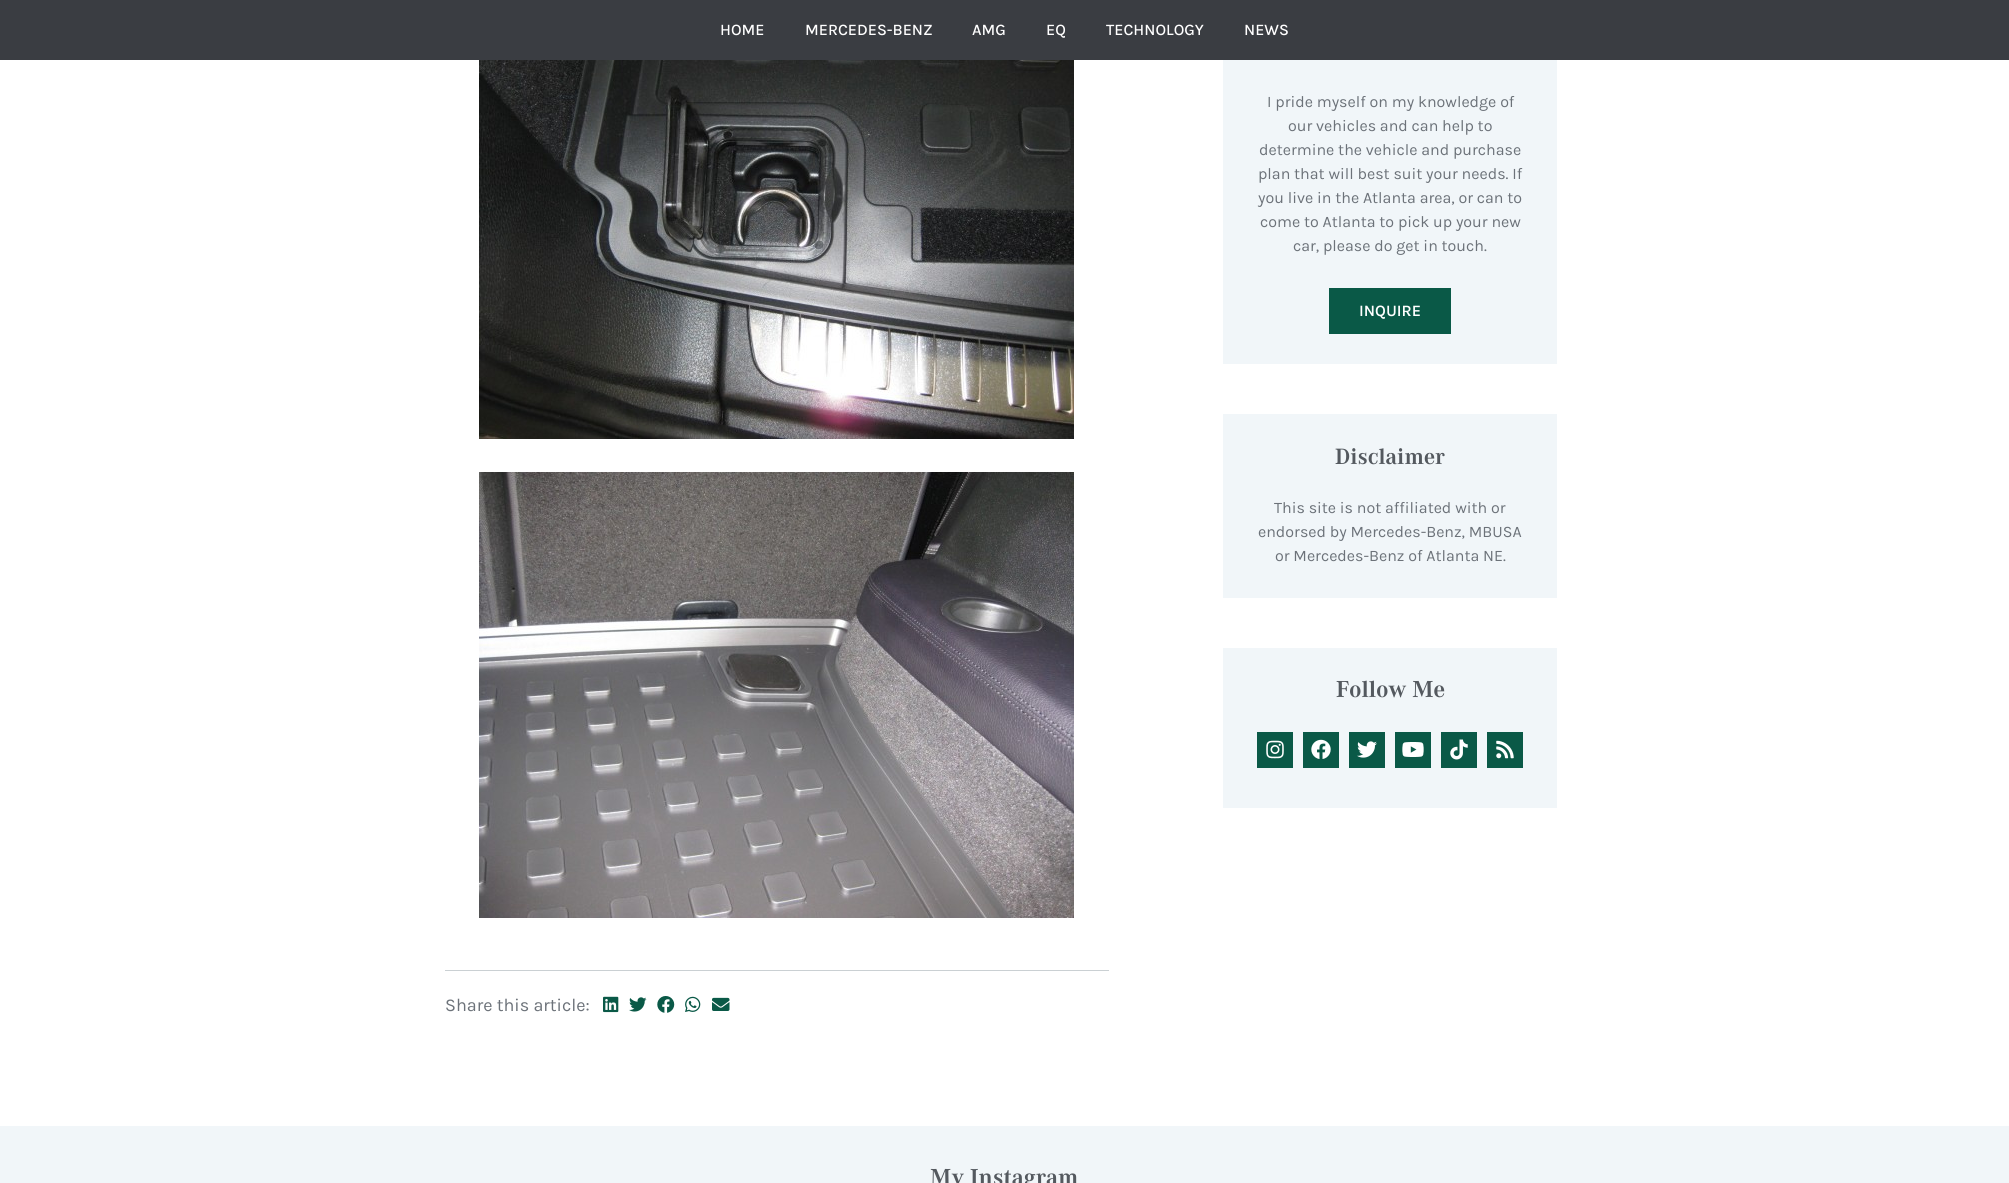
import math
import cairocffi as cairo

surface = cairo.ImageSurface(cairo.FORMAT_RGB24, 2009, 1183)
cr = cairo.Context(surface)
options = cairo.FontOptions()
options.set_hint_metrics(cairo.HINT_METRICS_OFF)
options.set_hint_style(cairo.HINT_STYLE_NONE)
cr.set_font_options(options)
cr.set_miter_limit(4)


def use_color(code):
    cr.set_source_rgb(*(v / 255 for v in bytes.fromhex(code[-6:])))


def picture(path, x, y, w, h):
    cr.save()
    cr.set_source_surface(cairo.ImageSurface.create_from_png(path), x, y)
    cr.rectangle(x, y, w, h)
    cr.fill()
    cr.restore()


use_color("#ffffff")
cr.paint()
use_color("#3a3d42")
cr.rectangle(0, 0, 2009, 60)
cr.fill()
cr.select_font_face("Karla Medium")
cr.set_font_size(16)
use_color("#ffffff")
cr.move_to(720, 35)
cr.show_text("HOME")
cr.move_to(805, 35)
cr.show_text("MERCEDES-BENZ")
cr.move_to(972, 35)
cr.show_text("AMG")
cr.move_to(1046, 35)
cr.show_text("EQ")
cr.move_to(1106, 35)
cr.show_text("TECHNOLOGY")
cr.move_to(1244, 35)
cr.show_text("NEWS")
use_color("#f1f6f9")
cr.rectangle(1223, 60, 334, 304)
cr.fill()
cr.select_font_face("Karla")
use_color("#6c7279")
cr.move_to(1267, 107)
cr.show_text("I pride myself on my knowledge of")
cr.move_to(1288, 131)
cr.show_text("our vehicles and can help to")
cr.move_to(1259, 155)
cr.show_text("determine the vehicle and purchase")
cr.move_to(1258, 179)
cr.show_text("plan that will best suit your needs. If")
cr.move_to(1258, 203)
cr.show_text("you live in the Atlanta area, or can to")
cr.move_to(1260, 227)
cr.show_text("come to Atlanta to pick up your new")
cr.move_to(1293, 251)
cr.show_text("car, please do get in touch.")
use_color("#0a5947")
cr.rectangle(1329, 288, 122, 46)
cr.fill()
cr.select_font_face("Karla SemiBold")
use_color("#ffffff")
cr.move_to(1359, 316)
cr.show_text("INQUIRE")
use_color("#f1f6f9")
cr.rectangle(1223, 414, 334, 184)
cr.fill()
cr.select_font_face("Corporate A", cairo.FONT_SLANT_NORMAL, cairo.FONT_WEIGHT_BOLD)
cr.set_font_size(23)
use_color("#54595f")
cr.move_to(1335, 464)
cr.show_text("Disclaimer")
cr.select_font_face("Karla")
cr.set_font_size(16)
use_color("#6c7279")
cr.move_to(1274, 513)
cr.show_text("This site is not affiliated with or")
cr.move_to(1258, 537)
cr.show_text("endorsed by Mercedes-Benz, MBUSA")
cr.move_to(1275, 561)
cr.show_text("or Mercedes-Benz of Atlanta NE.")
use_color("#f1f6f9")
cr.rectangle(1223, 648, 334, 160)
cr.fill()
cr.select_font_face("Corporate A", cairo.FONT_SLANT_NORMAL, cairo.FONT_WEIGHT_BOLD)
cr.set_font_size(24)
use_color("#54595f")
cr.move_to(1336, 697)
cr.show_text("Follow Me")
use_color("#0a5947")
cr.rectangle(1257, 732, 36, 36)
cr.fill()
picture("img1.png", 1266, 740, 18, 19)
cr.rectangle(1303, 732, 36, 36)
cr.fill()
picture("img2.png", 1311, 739, 20, 20)
cr.rectangle(1349, 732, 36, 36)
cr.fill()
picture("img3.png", 1357, 741, 20, 17)
cr.rectangle(1395, 732, 36, 36)
cr.fill()
picture("img4.png", 1402, 742, 22, 15)
cr.rectangle(1441, 732, 36, 36)
cr.fill()
picture("img5.png", 1450, 739, 18, 21)
cr.rectangle(1487, 732, 36, 36)
cr.fill()
picture("img6.png", 1496, 740, 18, 19)
picture("img7.png", 479, 60, 595, 379)
picture("img8.png", 479, 472, 595, 446)
use_color("#cad0d3")
cr.rectangle(445, 970, 664, 1)
cr.fill()
cr.select_font_face("Karla")
cr.set_font_size(18)
use_color("#6c7279")
cr.move_to(445, 1011)
cr.show_text("Share this article:")
picture("img9.png", 603, 996, 16, 17)
picture("img10.png", 629, 997, 18, 15)
picture("img11.png", 657, 996, 18, 17)
picture("img12.png", 685, 996, 16, 16)
picture("img13.png", 712, 997, 18, 14)
use_color("#f1f6f9")
cr.rectangle(0, 1126, 2009, 57)
cr.fill()
cr.select_font_face("Corporate A", cairo.FONT_SLANT_NORMAL, cairo.FONT_WEIGHT_BOLD)
cr.set_font_size(24)
use_color("#54595f")
cr.move_to(930, 1185)
cr.show_text("My Instagram")
surface.write_to_png("result.png")
